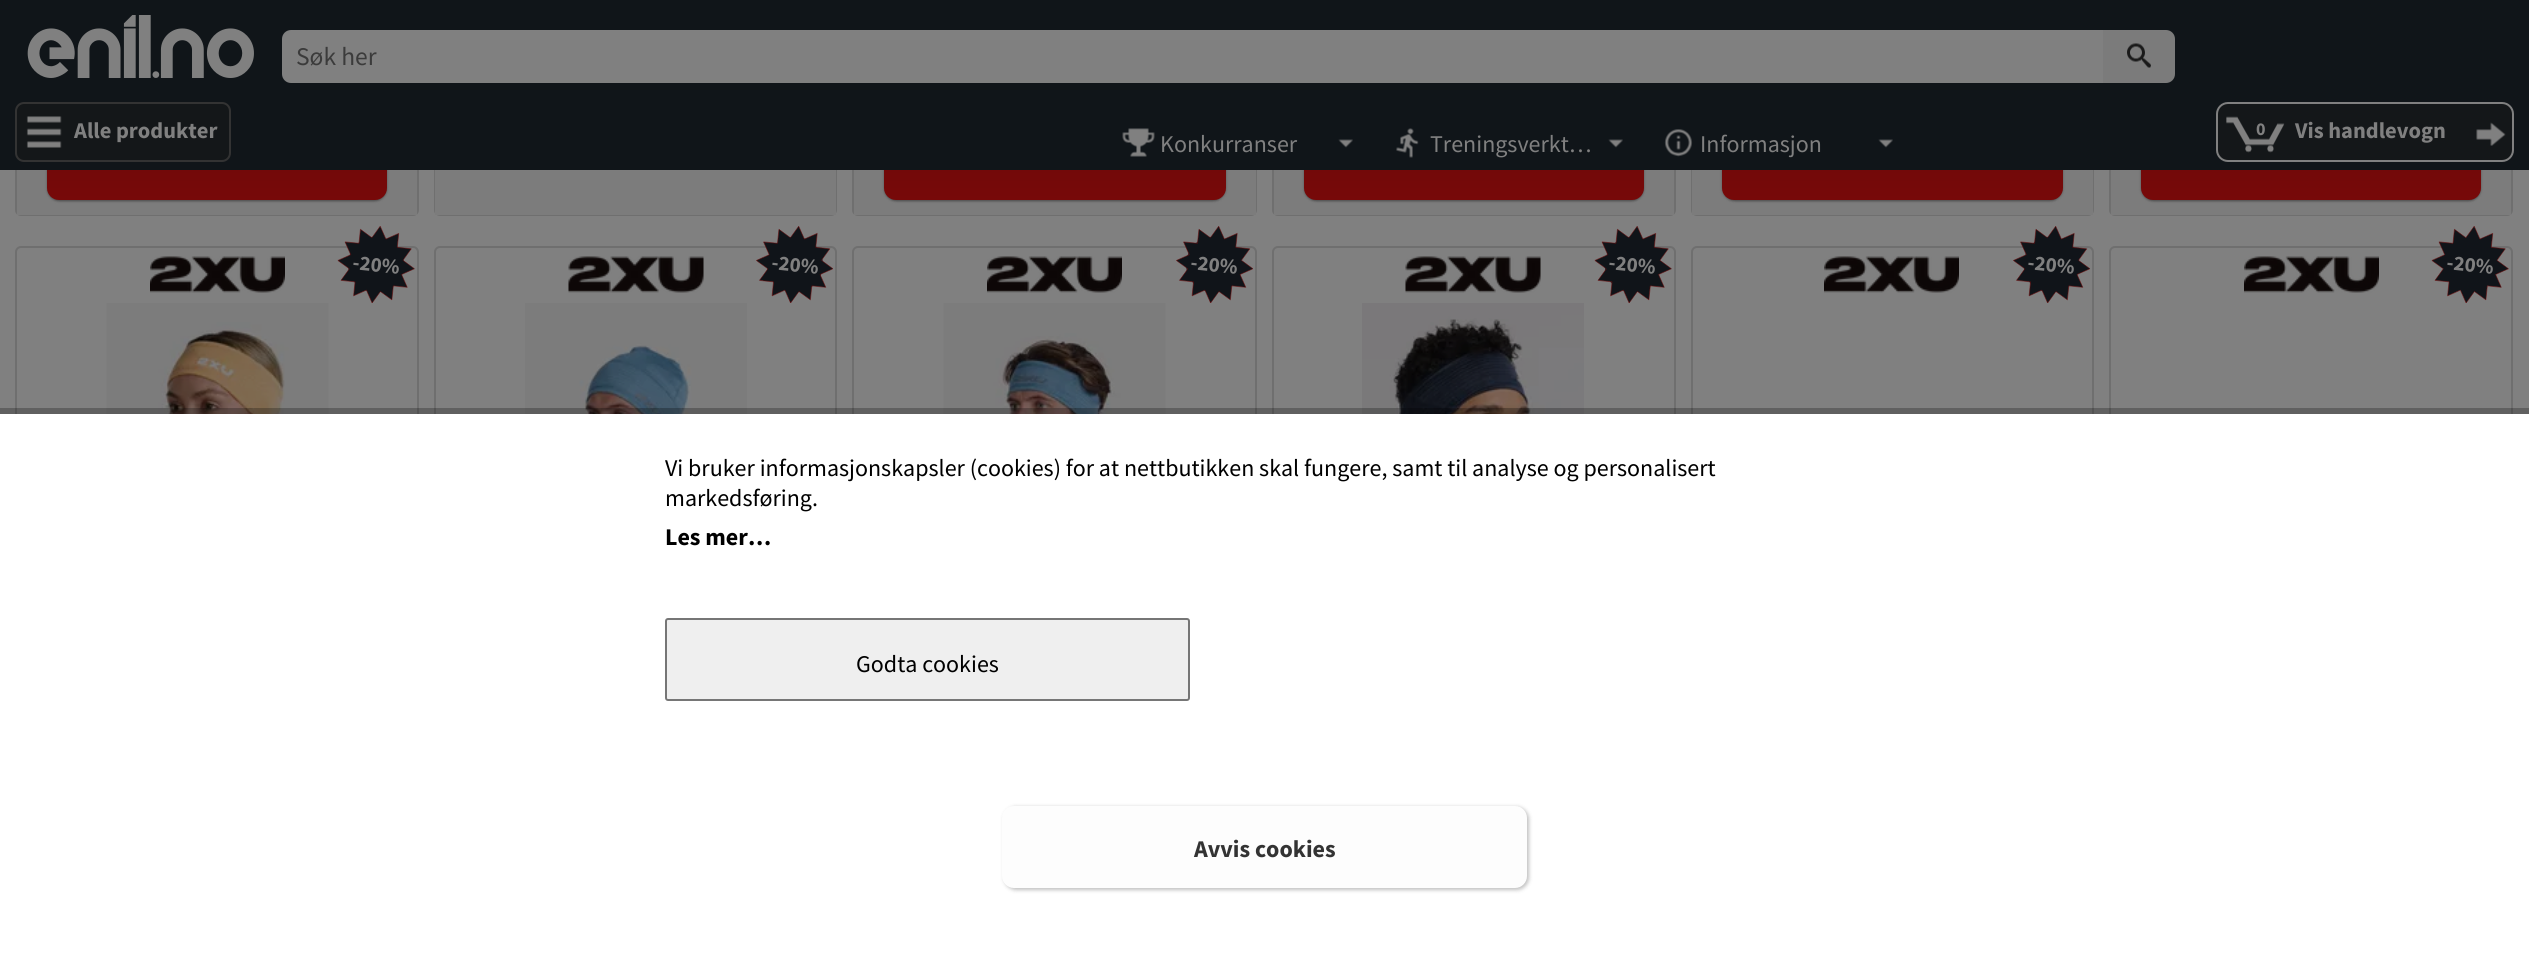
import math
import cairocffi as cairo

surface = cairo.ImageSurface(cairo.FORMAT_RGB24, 2529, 978)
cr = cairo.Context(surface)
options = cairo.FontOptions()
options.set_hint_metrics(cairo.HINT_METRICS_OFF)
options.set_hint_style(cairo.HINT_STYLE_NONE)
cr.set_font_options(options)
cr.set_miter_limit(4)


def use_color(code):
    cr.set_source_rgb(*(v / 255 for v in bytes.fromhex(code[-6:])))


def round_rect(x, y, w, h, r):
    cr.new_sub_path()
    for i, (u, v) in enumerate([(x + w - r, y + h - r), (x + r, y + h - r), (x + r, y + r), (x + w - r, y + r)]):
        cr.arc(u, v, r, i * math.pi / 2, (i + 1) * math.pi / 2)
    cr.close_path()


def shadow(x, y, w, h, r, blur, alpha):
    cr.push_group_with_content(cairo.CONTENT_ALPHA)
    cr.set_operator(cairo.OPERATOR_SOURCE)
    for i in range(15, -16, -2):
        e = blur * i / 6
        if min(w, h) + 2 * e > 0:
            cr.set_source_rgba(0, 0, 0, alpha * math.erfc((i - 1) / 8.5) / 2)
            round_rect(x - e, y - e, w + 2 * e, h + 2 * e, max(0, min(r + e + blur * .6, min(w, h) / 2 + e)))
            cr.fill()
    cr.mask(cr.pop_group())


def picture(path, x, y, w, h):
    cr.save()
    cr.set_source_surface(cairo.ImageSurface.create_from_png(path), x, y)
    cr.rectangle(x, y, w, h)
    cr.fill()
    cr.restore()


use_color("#808080")
cr.paint()
round_rect(16, -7, 402, 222, 5)
use_color("#6f6f6f")
cr.stroke()
use_color("#7c7c7c")
cr.rectangle(17, 170, 400, 45)
cr.fill()
use_color("#000000")
shadow(47, 141, 340, 60, 12, 2, 0.12)
shadow(47, 141, 340, 60, 12, 1, 0.14)
shadow(48, 144, 338, 57, 11, 1, 0.2)
gradient = cairo.LinearGradient(217, 139, 217, 200)
gradient.add_color_stop_rgba(0, 0.435, 0.035, 0.035, 1)
gradient.add_color_stop_rgba(1, 0.467, 0.035, 0.035, 1)
cr.set_source(gradient)
round_rect(47, 140, 340, 60, 12)
cr.fill()
round_rect(435, -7, 401, 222, 5)
use_color("#6f6f6f")
cr.stroke()
round_rect(853, -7, 403, 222, 5)
cr.stroke()
use_color("#7c7c7c")
cr.rectangle(854, 170, 402, 45)
cr.fill()
use_color("#000000")
shadow(884, 141, 342, 60, 12, 2, 0.12)
shadow(884, 141, 342, 60, 12, 1, 0.14)
shadow(885, 144, 339, 57, 11, 1, 0.2)
gradient = cairo.LinearGradient(1055, 139, 1055, 200)
gradient.add_color_stop_rgba(0, 0.435, 0.035, 0.035, 1)
gradient.add_color_stop_rgba(1, 0.467, 0.035, 0.035, 1)
cr.set_source(gradient)
round_rect(884, 140, 342, 60, 12)
cr.fill()
round_rect(1273, -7, 402, 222, 5)
use_color("#6f6f6f")
cr.stroke()
use_color("#7c7c7c")
cr.rectangle(1274, 170, 400, 45)
cr.fill()
use_color("#000000")
shadow(1304, 141, 340, 60, 12, 2, 0.12)
shadow(1304, 141, 340, 60, 12, 1, 0.14)
shadow(1305, 144, 338, 57, 11, 1, 0.2)
gradient = cairo.LinearGradient(1474, 139, 1474, 200)
gradient.add_color_stop_rgba(0, 0.435, 0.035, 0.035, 1)
gradient.add_color_stop_rgba(1, 0.467, 0.035, 0.035, 1)
cr.set_source(gradient)
round_rect(1304, 140, 340, 60, 12)
cr.fill()
round_rect(1692, -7, 401, 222, 5)
use_color("#6f6f6f")
cr.stroke()
use_color("#7c7c7c")
cr.rectangle(1692, 170, 401, 45)
cr.fill()
use_color("#000000")
shadow(1722, 141, 341, 60, 12, 2, 0.12)
shadow(1722, 141, 341, 60, 12, 1, 0.14)
shadow(1724, 144, 337, 57, 11, 1, 0.2)
gradient = cairo.LinearGradient(1892, 139, 1892, 200)
gradient.add_color_stop_rgba(0, 0.435, 0.035, 0.035, 1)
gradient.add_color_stop_rgba(1, 0.467, 0.035, 0.035, 1)
cr.set_source(gradient)
round_rect(1722, 140, 341, 60, 12)
cr.fill()
round_rect(2110, -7, 402, 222, 5)
use_color("#6f6f6f")
cr.stroke()
use_color("#7c7c7c")
cr.rectangle(2111, 170, 400, 45)
cr.fill()
use_color("#000000")
shadow(2141, 141, 340, 60, 12, 2, 0.12)
shadow(2141, 141, 340, 60, 12, 1, 0.14)
shadow(2142, 144, 338, 57, 11, 1, 0.2)
gradient = cairo.LinearGradient(2311, 139, 2311, 200)
gradient.add_color_stop_rgba(0, 0.435, 0.035, 0.035, 1)
gradient.add_color_stop_rgba(1, 0.467, 0.035, 0.035, 1)
cr.set_source(gradient)
round_rect(2141, 140, 340, 60, 12)
cr.fill()
use_color("#101519")
cr.rectangle(0, 0, 2529, 170)
cr.fill()
cr.select_font_face("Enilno")
cr.set_font_size(84)
use_color("#808080")
cr.move_to(26, 78)
cr.show_text("e")
cr.move_to(76, 78)
cr.show_text("nil.no")
cr.new_path()
cr.move_to(291, 30)
cr.line_to(2103, 30)
cr.line_to(2103, 83)
cr.line_to(291, 83)
cr.curve_to(286, 83, 282, 79, 282, 74)
cr.line_to(282, 39)
cr.curve_to(282, 34, 286, 30, 291, 30)
cr.close_path()
cr.fill()
cr.select_font_face("Source Sans Pro")
cr.set_font_size(25.5)
use_color("#3b3b3b")
cr.move_to(296, 65)
cr.show_text("Søk her")
use_color("#7b7b7b")
cr.new_path()
cr.move_to(2103, 30)
cr.line_to(2166, 30)
cr.curve_to(2171, 30, 2175, 34, 2175, 39)
cr.line_to(2175, 74)
cr.curve_to(2175, 79, 2171, 83, 2166, 83)
cr.line_to(2103, 83)
cr.close_path()
cr.fill()
picture("img1.png", 2127, 43, 24, 25)
use_color("#141719")
round_rect(16, 103, 214, 58, 8)
cr.fill_preserve()
use_color("#333333")
cr.stroke()
picture("img2.png", 26, 116, 36, 32)
cr.select_font_face("Source Sans Pro", cairo.FONT_SLANT_NORMAL, cairo.FONT_WEIGHT_BOLD)
cr.set_font_size(22.5)
use_color("#808080")
cr.move_to(74, 138)
cr.show_text("Alle produkter")
use_color("#141719")
round_rect(2217, 103, 296, 58, 11)
cr.fill_preserve()
use_color("#808080")
cr.stroke()
picture("img3.png", 2226, 116, 59, 37)
cr.set_font_size(18)
cr.move_to(2256, 135)
cr.show_text("0")
cr.set_font_size(22.5)
cr.move_to(2295, 138)
cr.show_text("Vis handlevogn")
picture("img4.png", 2476, 122, 30, 24)
picture("img5.png", 1122, 128, 33, 29)
cr.select_font_face("Source Sans Pro")
cr.set_font_size(24)
cr.move_to(1160, 152)
cr.show_text("Konkurranser")
picture("img6.png", 1338, 139, 15, 9)
picture("img7.png", 1396, 128, 23, 30)
cr.move_to(1430, 152)
cr.show_text("Treningsverkt…")
picture("img6.png", 1608, 139, 15, 9)
picture("img8.png", 1664, 129, 29, 28)
cr.move_to(1700, 152)
cr.show_text("Informasjon")
picture("img6.png", 1878, 139, 15, 9)
use_color("#7c7c7c")
cr.rectangle(435, 170, 401, 45)
cr.fill()
round_rect(16, 247, 402, 657, 5)
use_color("#6f6f6f")
cr.stroke()
picture("img9.png", 150, 256, 135, 37)
use_color("#232930")
cr.new_path()
cr.move_to(379, 237)
cr.curve_to(394, 239, 405, 252, 404, 267)
cr.curve_to(402, 283, 388, 294, 373, 292)
cr.curve_to(358, 291, 347, 277, 348, 262)
cr.curve_to(350, 246, 364, 235, 379, 237)
cr.close_path()
cr.fill()
picture("img10.png", 337, 226, 78, 77)
cr.select_font_face("Source Sans Pro", cairo.FONT_SLANT_NORMAL, cairo.FONT_WEIGHT_BOLD)
cr.set_font_size(21)
use_color("#808080")
cr.save()
cr.translate(352, 269)
cr.rotate(6 * math.pi / 180)
cr.move_to(0, 0)
cr.show_text("-20%")
cr.restore()
picture("img11.png", 106, 303, 223, 111)
round_rect(435, 247, 401, 657, 5)
use_color("#6f6f6f")
cr.stroke()
picture("img12.png", 568, 256, 136, 37)
use_color("#232930")
cr.new_path()
cr.move_to(798, 237)
cr.curve_to(813, 239, 824, 252, 823, 267)
cr.curve_to(821, 283, 807, 294, 792, 292)
cr.curve_to(777, 291, 766, 277, 767, 262)
cr.curve_to(769, 246, 783, 235, 798, 237)
cr.close_path()
cr.fill()
picture("img13.png", 756, 226, 77, 77)
use_color("#808080")
cr.save()
cr.translate(771, 269)
cr.rotate(6 * math.pi / 180)
cr.move_to(0, 0)
cr.show_text("-20%")
cr.restore()
picture("img14.png", 525, 303, 222, 111)
round_rect(853, 247, 403, 657, 5)
use_color("#6f6f6f")
cr.stroke()
picture("img9.png", 987, 256, 135, 37)
use_color("#232930")
cr.new_path()
cr.move_to(1217, 237)
cr.curve_to(1232, 239, 1243, 252, 1241, 267)
cr.curve_to(1240, 283, 1226, 294, 1211, 292)
cr.curve_to(1196, 291, 1185, 277, 1186, 262)
cr.curve_to(1188, 246, 1201, 235, 1217, 237)
cr.close_path()
cr.fill()
picture("img15.png", 1176, 226, 77, 77)
use_color("#808080")
cr.save()
cr.translate(1190, 269)
cr.rotate(6 * math.pi / 180)
cr.move_to(0, 0)
cr.show_text("-20%")
cr.restore()
picture("img16.png", 943, 303, 223, 111)
round_rect(1273, 247, 402, 657, 5)
use_color("#6f6f6f")
cr.stroke()
picture("img17.png", 1405, 256, 136, 37)
use_color("#232930")
cr.new_path()
cr.move_to(1635, 237)
cr.curve_to(1651, 239, 1662, 252, 1660, 267)
cr.curve_to(1659, 283, 1645, 294, 1630, 292)
cr.curve_to(1614, 291, 1603, 277, 1605, 262)
cr.curve_to(1607, 246, 1620, 235, 1635, 237)
cr.close_path()
cr.fill()
picture("img18.png", 1594, 226, 78, 77)
use_color("#808080")
cr.save()
cr.translate(1608, 269)
cr.rotate(6 * math.pi / 180)
cr.move_to(0, 0)
cr.show_text("-20%")
cr.restore()
picture("img19.png", 1362, 303, 222, 111)
round_rect(1692, 247, 401, 657, 5)
use_color("#6f6f6f")
cr.stroke()
picture("img20.png", 1824, 256, 135, 37)
use_color("#232930")
cr.new_path()
cr.move_to(2054, 237)
cr.curve_to(2070, 239, 2081, 252, 2079, 267)
cr.curve_to(2077, 283, 2064, 294, 2048, 292)
cr.curve_to(2033, 291, 2022, 277, 2024, 262)
cr.curve_to(2025, 246, 2039, 235, 2054, 237)
cr.close_path()
cr.fill()
picture("img21.png", 2013, 226, 77, 77)
use_color("#808080")
cr.save()
cr.translate(2027, 269)
cr.rotate(6 * math.pi / 180)
cr.move_to(0, 0)
cr.show_text("-20%")
cr.restore()
round_rect(2110, 247, 402, 657, 5)
use_color("#6f6f6f")
cr.stroke()
picture("img22.png", 2244, 256, 135, 37)
picture("img23.png", 2431, 226, 78, 77)
use_color("#808080")
cr.save()
cr.translate(2446, 269)
cr.rotate(6 * math.pi / 180)
cr.move_to(0, 0)
cr.show_text("-20%")
cr.restore()
cr.set_source_rgba(0, 0, 0, 0.25)
cr.rectangle(0, 408, 2529, 6)
cr.fill()
use_color("#ffffff")
cr.rectangle(0, 414, 2529, 564)
cr.fill()
cr.select_font_face("Source Sans Pro")
cr.set_font_size(24)
use_color("#000000")
cr.move_to(665, 476)
cr.show_text("Vi bruker informasjonskapsler (cookies) for at nettbutikken skal fungere, samt til analyse og personalisert")
cr.move_to(665, 506)
cr.show_text("markedsføring.")
cr.select_font_face("Source Sans Pro", cairo.FONT_SLANT_NORMAL, cairo.FONT_WEIGHT_BOLD)
cr.move_to(665, 545)
cr.show_text("Les mer…")
use_color("#efefef")
round_rect(666, 619, 523, 81, 2)
cr.fill_preserve()
use_color("#767676")
cr.stroke()
cr.select_font_face("Source Sans Pro")
use_color("#000000")
cr.move_to(856, 672)
cr.show_text("Godta cookies")
use_color("#000000")
shadow(1004, 807, 525, 83, 12, 2, 0.25)
use_color("#fdfdfd")
round_rect(1002, 806, 525, 82, 12)
cr.fill()
cr.select_font_face("Source Sans Pro", cairo.FONT_SLANT_NORMAL, cairo.FONT_WEIGHT_BOLD)
use_color("#333333")
cr.move_to(1194, 857)
cr.show_text("Avvis cookies")
surface.write_to_png("result.png")
